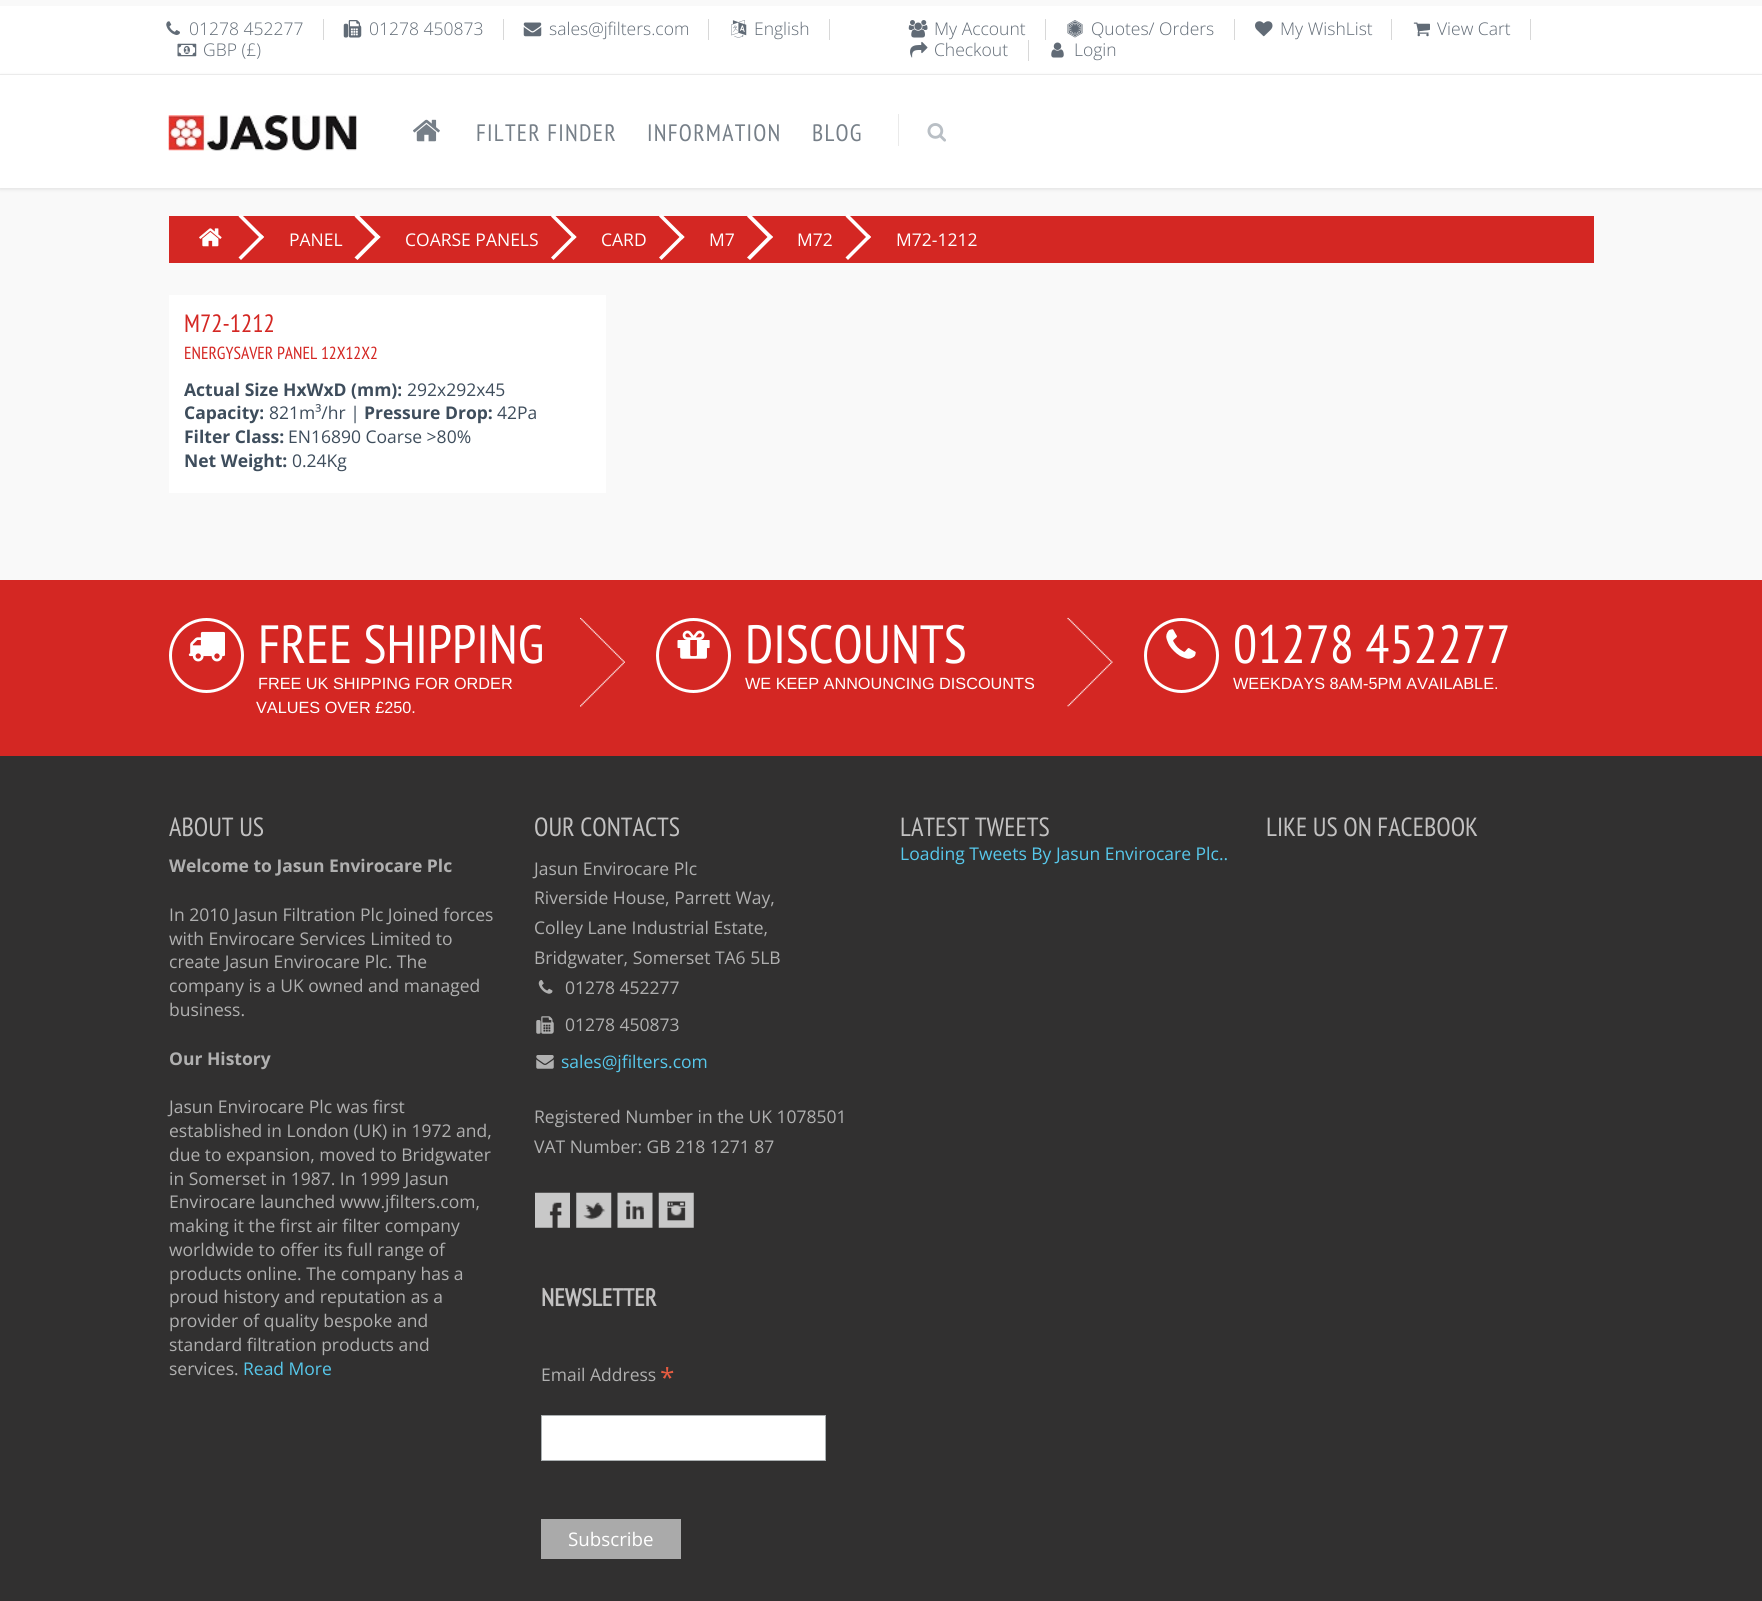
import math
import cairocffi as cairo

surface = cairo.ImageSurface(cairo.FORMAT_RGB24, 1762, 1601)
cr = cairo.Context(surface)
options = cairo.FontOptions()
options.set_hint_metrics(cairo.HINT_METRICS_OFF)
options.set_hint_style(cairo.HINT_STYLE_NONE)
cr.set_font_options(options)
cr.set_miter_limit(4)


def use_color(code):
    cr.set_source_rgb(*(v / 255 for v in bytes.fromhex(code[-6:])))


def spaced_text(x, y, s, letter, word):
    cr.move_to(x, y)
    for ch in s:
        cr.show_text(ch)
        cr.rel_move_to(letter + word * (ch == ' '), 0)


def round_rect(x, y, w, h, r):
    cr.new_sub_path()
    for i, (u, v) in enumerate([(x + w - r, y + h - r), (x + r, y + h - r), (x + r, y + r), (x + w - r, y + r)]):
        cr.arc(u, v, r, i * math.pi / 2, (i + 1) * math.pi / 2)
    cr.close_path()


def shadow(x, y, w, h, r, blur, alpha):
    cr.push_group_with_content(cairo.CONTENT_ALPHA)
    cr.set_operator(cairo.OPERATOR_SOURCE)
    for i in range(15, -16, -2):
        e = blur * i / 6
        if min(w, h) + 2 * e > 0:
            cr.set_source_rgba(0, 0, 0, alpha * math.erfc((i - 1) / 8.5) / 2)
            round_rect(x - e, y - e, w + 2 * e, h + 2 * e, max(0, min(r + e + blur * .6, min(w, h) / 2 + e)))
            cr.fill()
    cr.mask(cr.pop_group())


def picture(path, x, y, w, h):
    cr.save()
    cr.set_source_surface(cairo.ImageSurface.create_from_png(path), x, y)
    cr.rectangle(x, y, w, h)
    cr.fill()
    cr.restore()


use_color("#f9f9f9")
cr.paint()
use_color("#ffffff")
cr.rectangle(0, 6, 1762, 68)
cr.fill()
use_color("#eeeeee")
cr.rectangle(0, 74, 1762, 1)
cr.fill()
use_color("#d8d8d8")
cr.rectangle(323, 19, 1, 21)
cr.fill()
picture("img1.png", 166, 21, 14, 14)
cr.select_font_face("Open Sans Light")
cr.set_font_size(17.5)
use_color("#616b76")
cr.move_to(189, 35)
cr.show_text("01278 452277")
use_color("#d8d8d8")
cr.rectangle(503, 19, 1, 21)
cr.fill()
picture("img2.png", 343, 20, 19, 18)
use_color("#616b76")
cr.move_to(369, 35)
cr.show_text("01278 450873")
use_color("#d8d8d8")
cr.rectangle(708, 19, 1, 21)
cr.fill()
picture("img3.png", 523, 22, 19, 15)
use_color("#616b76")
cr.move_to(549, 35)
cr.show_text("sales@jfilters.com")
use_color("#d8d8d8")
cr.rectangle(829, 19, 1, 21)
cr.fill()
picture("img4.png", 731, 20, 16, 18)
use_color("#616b76")
cr.move_to(754, 35)
cr.show_text("English")
picture("img5.png", 177, 43, 20, 14)
cr.move_to(203, 56)
cr.show_text("GBP (£)")
use_color("#d8d8d8")
cr.rectangle(1045, 19, 1, 21)
cr.fill()
picture("img6.png", 908, 20, 20, 18)
use_color("#616b76")
cr.move_to(934, 35)
cr.show_text("My Account")
use_color("#d8d8d8")
cr.rectangle(1234, 19, 1, 21)
cr.fill()
picture("img7.png", 1067, 20, 16, 18)
use_color("#616b76")
cr.move_to(1091, 35)
cr.show_text("Quotes/ Orders")
use_color("#d8d8d8")
cr.rectangle(1391, 19, 1, 21)
cr.fill()
picture("img8.png", 1255, 21, 18, 16)
use_color("#616b76")
cr.move_to(1280, 35)
cr.show_text("My WishList")
use_color("#d8d8d8")
cr.rectangle(1530, 19, 1, 21)
cr.fill()
picture("img9.png", 1413, 22, 17, 15)
use_color("#616b76")
cr.move_to(1437, 35)
cr.show_text("View Cart")
use_color("#d8d8d8")
cr.rectangle(1028, 40, 1, 21)
cr.fill()
picture("img10.png", 910, 41, 18, 17)
use_color("#616b76")
cr.move_to(934, 56)
cr.show_text("Checkout")
picture("img11.png", 1051, 42, 13, 16)
cr.move_to(1074, 56)
cr.show_text("Login")
use_color("#dddddd")
shadow(0, 76, 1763, 113, 0, 2, 1)
use_color("#ffffff")
cr.rectangle(0, 75, 1762, 113)
cr.fill()
picture("img12.png", 168, 115, 189, 36)
picture("img13.png", 413, 119, 27, 23)
cr.select_font_face("PT Sans Narrow")
cr.set_font_size(23.75)
use_color("#767f88")
spaced_text(476, 141, "FILTER FINDER", 1.25, 0)
spaced_text(647, 141, "INFORMATION", 1.25, 0)
spaced_text(812, 141, "BLOG", 1.25, 0)
use_color("#eaeaea")
cr.rectangle(898, 114, 1, 32)
cr.fill()
picture("img14.png", 927, 123, 19, 19)
use_color("#d42723")
cr.rectangle(169, 216, 1425, 47)
cr.fill()
picture("img15.png", 199, 228, 23, 19)
use_color("#ffffff")
cr.new_path()
cr.move_to(238.5, 216.5)
cr.line_to(241, 214)
cr.line_to(264, 237)
cr.line_to(261.5, 239.5)
cr.close_path()
cr.fill()
cr.new_path()
cr.move_to(238.5, 257.5)
cr.line_to(261.5, 234.5)
cr.line_to(264, 237)
cr.line_to(241, 260)
cr.close_path()
cr.fill()
cr.select_font_face("Open Sans")
cr.set_font_size(17.5)
cr.move_to(289, 246)
cr.show_text("PANEL")
cr.new_path()
cr.move_to(354.5, 216.5)
cr.line_to(357.5, 214)
cr.line_to(380.5, 237)
cr.line_to(377.5, 239.5)
cr.close_path()
cr.fill()
cr.new_path()
cr.move_to(354.5, 257.5)
cr.line_to(377.5, 234.5)
cr.line_to(380.5, 237)
cr.line_to(357.5, 260)
cr.close_path()
cr.fill()
cr.move_to(405, 246)
cr.show_text("COARSE PANELS")
cr.new_path()
cr.move_to(551, 216.5)
cr.line_to(553.5, 214)
cr.line_to(576.5, 237)
cr.line_to(574, 239.5)
cr.close_path()
cr.fill()
cr.new_path()
cr.move_to(551, 257.5)
cr.line_to(574, 234.5)
cr.line_to(576.5, 237)
cr.line_to(553.5, 260)
cr.close_path()
cr.fill()
cr.move_to(601, 246)
cr.show_text("CARD")
cr.new_path()
cr.move_to(659, 216.5)
cr.line_to(661.5, 214)
cr.line_to(684.5, 237)
cr.line_to(682, 239.5)
cr.close_path()
cr.fill()
cr.new_path()
cr.move_to(659, 257.5)
cr.line_to(682, 234.5)
cr.line_to(684.5, 237)
cr.line_to(661.5, 260)
cr.close_path()
cr.fill()
cr.move_to(709, 246)
cr.show_text("M7")
cr.new_path()
cr.move_to(747, 216.5)
cr.line_to(750, 214)
cr.line_to(773, 237)
cr.line_to(770, 239.5)
cr.close_path()
cr.fill()
cr.new_path()
cr.move_to(747, 257.5)
cr.line_to(770, 234.5)
cr.line_to(773, 237)
cr.line_to(750, 260)
cr.close_path()
cr.fill()
cr.move_to(797, 246)
cr.show_text("M72")
cr.new_path()
cr.move_to(845.5, 216.5)
cr.line_to(848, 214)
cr.line_to(871, 237)
cr.line_to(868.5, 239.5)
cr.close_path()
cr.fill()
cr.new_path()
cr.move_to(845.5, 257.5)
cr.line_to(868.5, 234.5)
cr.line_to(871, 237)
cr.line_to(848, 260)
cr.close_path()
cr.fill()
cr.move_to(896, 246)
cr.show_text("M72-1212")
cr.rectangle(169, 295, 437, 198)
cr.fill()
cr.select_font_face("PT Sans Narrow")
cr.set_font_size(25)
use_color("#d42723")
cr.move_to(184, 332)
cr.show_text("M72-1212")
cr.set_font_size(17.5)
cr.move_to(184, 359)
cr.show_text("ENERGYSAVER PANEL 12X12X2")
cr.select_font_face("Open Sans", cairo.FONT_SLANT_NORMAL, cairo.FONT_WEIGHT_BOLD)
use_color("#3e4d5c")
cr.move_to(184, 396)
cr.show_text("Actual Size HxWxD (mm):")
cr.select_font_face("Open Sans")
cr.move_to(407, 396)
cr.show_text("292x292x45")
cr.select_font_face("Open Sans", cairo.FONT_SLANT_NORMAL, cairo.FONT_WEIGHT_BOLD)
cr.move_to(184, 419)
cr.show_text("Capacity:")
cr.select_font_face("Open Sans")
cr.move_to(269, 419)
cr.show_text("821m³/hr |")
cr.select_font_face("Open Sans", cairo.FONT_SLANT_NORMAL, cairo.FONT_WEIGHT_BOLD)
cr.move_to(364, 419)
cr.show_text("Pressure Drop:")
cr.select_font_face("Open Sans")
cr.move_to(497, 419)
cr.show_text("42Pa")
cr.select_font_face("Open Sans", cairo.FONT_SLANT_NORMAL, cairo.FONT_WEIGHT_BOLD)
cr.move_to(184, 443)
cr.show_text("Filter Class:")
cr.select_font_face("Open Sans")
cr.move_to(288, 443)
cr.show_text("EN16890 Coarse >80%")
cr.select_font_face("Open Sans", cairo.FONT_SLANT_NORMAL, cairo.FONT_WEIGHT_BOLD)
cr.move_to(184, 467)
cr.show_text("Net Weight:")
cr.select_font_face("Open Sans")
cr.move_to(292, 467)
cr.show_text("0.24Kg")
use_color("#d42723")
cr.rectangle(0, 580, 1762, 176)
cr.fill()
cr.arc(206.5, 655.5, 36, 0, 2 * math.pi)
use_color("#ffffff")
cr.set_line_width(3)
cr.stroke()
picture("img16.png", 188, 631, 37, 31)
cr.select_font_face("PT Sans Narrow")
cr.set_font_size(53.75)
cr.move_to(258, 663)
cr.show_text("FREE SHIPPING")
cr.select_font_face("Liberation Sans")
cr.set_font_size(16.25)
cr.move_to(258, 689)
cr.show_text("FREE UK SHIPPING FOR ORDER")
cr.move_to(256, 713)
cr.show_text("VALUES OVER £250.")
picture("img17.png", 580, 617, 45, 90)
cr.arc(693.5, 655.5, 36, 0, 2 * math.pi)
cr.stroke()
picture("img18.png", 677, 630, 33, 29)
cr.select_font_face("PT Sans Narrow")
cr.set_font_size(53.75)
cr.move_to(745, 663)
cr.show_text("DISCOUNTS")
cr.select_font_face("Liberation Sans")
cr.set_font_size(16.25)
cr.move_to(745, 689)
cr.show_text("WE KEEP ANNOUNCING DISCOUNTS")
picture("img19.png", 1067, 617, 46, 90)
cr.arc(1181.5, 655.5, 36, 0, 2 * math.pi)
cr.stroke()
picture("img20.png", 1166, 629, 30, 30)
cr.select_font_face("PT Sans Narrow")
cr.set_font_size(53.75)
cr.move_to(1233, 663)
cr.show_text("01278 452277")
cr.select_font_face("Liberation Sans")
cr.set_font_size(16.25)
cr.move_to(1233, 689)
cr.show_text("WEEKDAYS 8AM-5PM AVAILABLE.")
use_color("#313030")
cr.rectangle(0, 756, 1762, 845)
cr.fill()
cr.select_font_face("PT Sans Narrow")
cr.set_font_size(26.25)
use_color("#c2c1c1")
cr.move_to(169, 836)
cr.show_text("ABOUT US")
cr.select_font_face("Open Sans", cairo.FONT_SLANT_NORMAL, cairo.FONT_WEIGHT_BOLD)
cr.set_font_size(17.5)
use_color("#b0b0b0")
cr.move_to(169, 872)
cr.show_text("Welcome to Jasun Envirocare Plc")
cr.select_font_face("Open Sans")
cr.move_to(169, 921)
cr.show_text("In 2010 Jasun Filtration Plc Joined forces")
cr.move_to(169, 945)
cr.show_text("with Envirocare Services Limited to")
cr.move_to(169, 968)
cr.show_text("create Jasun Envirocare Plc. The")
cr.move_to(169, 992)
cr.show_text("company is a UK owned and managed")
cr.move_to(169, 1016)
cr.show_text("business.")
cr.select_font_face("Open Sans", cairo.FONT_SLANT_NORMAL, cairo.FONT_WEIGHT_BOLD)
cr.move_to(169, 1065)
cr.show_text("Our History")
cr.select_font_face("Open Sans")
cr.move_to(169, 1113)
cr.show_text("Jasun Envirocare Plc was first")
cr.move_to(169, 1137)
cr.show_text("established in London (UK) in 1972 and,")
cr.move_to(169, 1161)
cr.show_text("due to expansion, moved to Bridgwater")
cr.move_to(169, 1185)
cr.show_text("in Somerset in 1987. In 1999 Jasun")
cr.move_to(169, 1208)
cr.show_text("Envirocare launched www.jfilters.com,")
cr.move_to(169, 1232)
cr.show_text("making it the first air filter company")
cr.move_to(169, 1256)
cr.show_text("worldwide to offer its full range of")
cr.move_to(169, 1280)
cr.show_text("products online. The company has a")
cr.move_to(169, 1303)
cr.show_text("proud history and reputation as a")
cr.move_to(169, 1327)
cr.show_text("provider of quality bespoke and")
cr.move_to(169, 1351)
cr.show_text("standard filtration products and")
cr.move_to(169, 1375)
cr.show_text("services.")
use_color("#57c8eb")
cr.move_to(243, 1375)
cr.show_text("Read More")
cr.select_font_face("PT Sans Narrow")
cr.set_font_size(26.25)
use_color("#c2c1c1")
cr.move_to(534, 836)
cr.show_text("OUR CONTACTS")
cr.select_font_face("Open Sans")
cr.set_font_size(17.5)
use_color("#b0b0b0")
cr.move_to(534, 875)
cr.show_text("Jasun Envirocare Plc")
cr.move_to(534, 904)
cr.show_text("Riverside House, Parrett Way,")
cr.move_to(534, 934)
cr.show_text("Colley Lane Industrial Estate,")
cr.move_to(534, 964)
cr.show_text("Bridgwater, Somerset TA6 5LB")
picture("img21.png", 538, 980, 15, 14)
cr.move_to(565, 994)
cr.show_text("01278 452277")
picture("img22.png", 536, 1016, 18, 18)
cr.move_to(565, 1031)
cr.show_text("01278 450873")
picture("img23.png", 536, 1055, 18, 14)
use_color("#57c8eb")
cr.move_to(561, 1068)
cr.show_text("sales@jfilters.com")
use_color("#b0b0b0")
cr.move_to(534, 1123)
cr.show_text("Registered Number in the UK 1078501")
cr.move_to(534, 1153)
cr.show_text("VAT Number: GB 218 1271 87")
picture("img24.png", 535, 1192, 35, 36)
picture("img25.png", 576, 1192, 36, 36)
picture("img26.png", 617, 1192, 36, 36)
picture("img27.png", 658, 1192, 36, 36)
cr.select_font_face("PT Sans Narrow", cairo.FONT_SLANT_NORMAL, cairo.FONT_WEIGHT_BOLD)
cr.set_font_size(24.5)
use_color("#c2c1c1")
cr.move_to(541, 1306)
cr.show_text("NEWSLETTER")
cr.select_font_face("Open Sans")
cr.set_font_size(17.5)
use_color("#b0b0b0")
cr.move_to(541, 1381)
cr.show_text("Email Address")
cr.set_font_size(26.25)
use_color("#e85c41")
cr.move_to(660, 1387)
cr.show_text("*")
use_color("#ffffff")
cr.rectangle(541.5, 1415.5, 284, 45)
cr.fill_preserve()
use_color("#abb0b2")
cr.set_line_width(1)
cr.stroke()
use_color("#aaaaaa")
cr.rectangle(541, 1519, 140, 40)
cr.fill()
cr.set_font_size(18.75)
use_color("#ffffff")
cr.move_to(568, 1546)
cr.show_text("Subscribe")
cr.select_font_face("PT Sans Narrow")
cr.set_font_size(26.25)
use_color("#c2c1c1")
cr.move_to(900, 836)
cr.show_text("LATEST TWEETS")
cr.select_font_face("Open Sans")
cr.set_font_size(17.5)
use_color("#57c8eb")
cr.move_to(900, 860)
cr.show_text("Loading Tweets By Jasun Envirocare Plc..")
cr.select_font_face("PT Sans Narrow")
cr.set_font_size(26.25)
use_color("#c2c1c1")
cr.move_to(1266, 836)
cr.show_text("LIKE US ON FACEBOOK")
surface.write_to_png("result.png")
